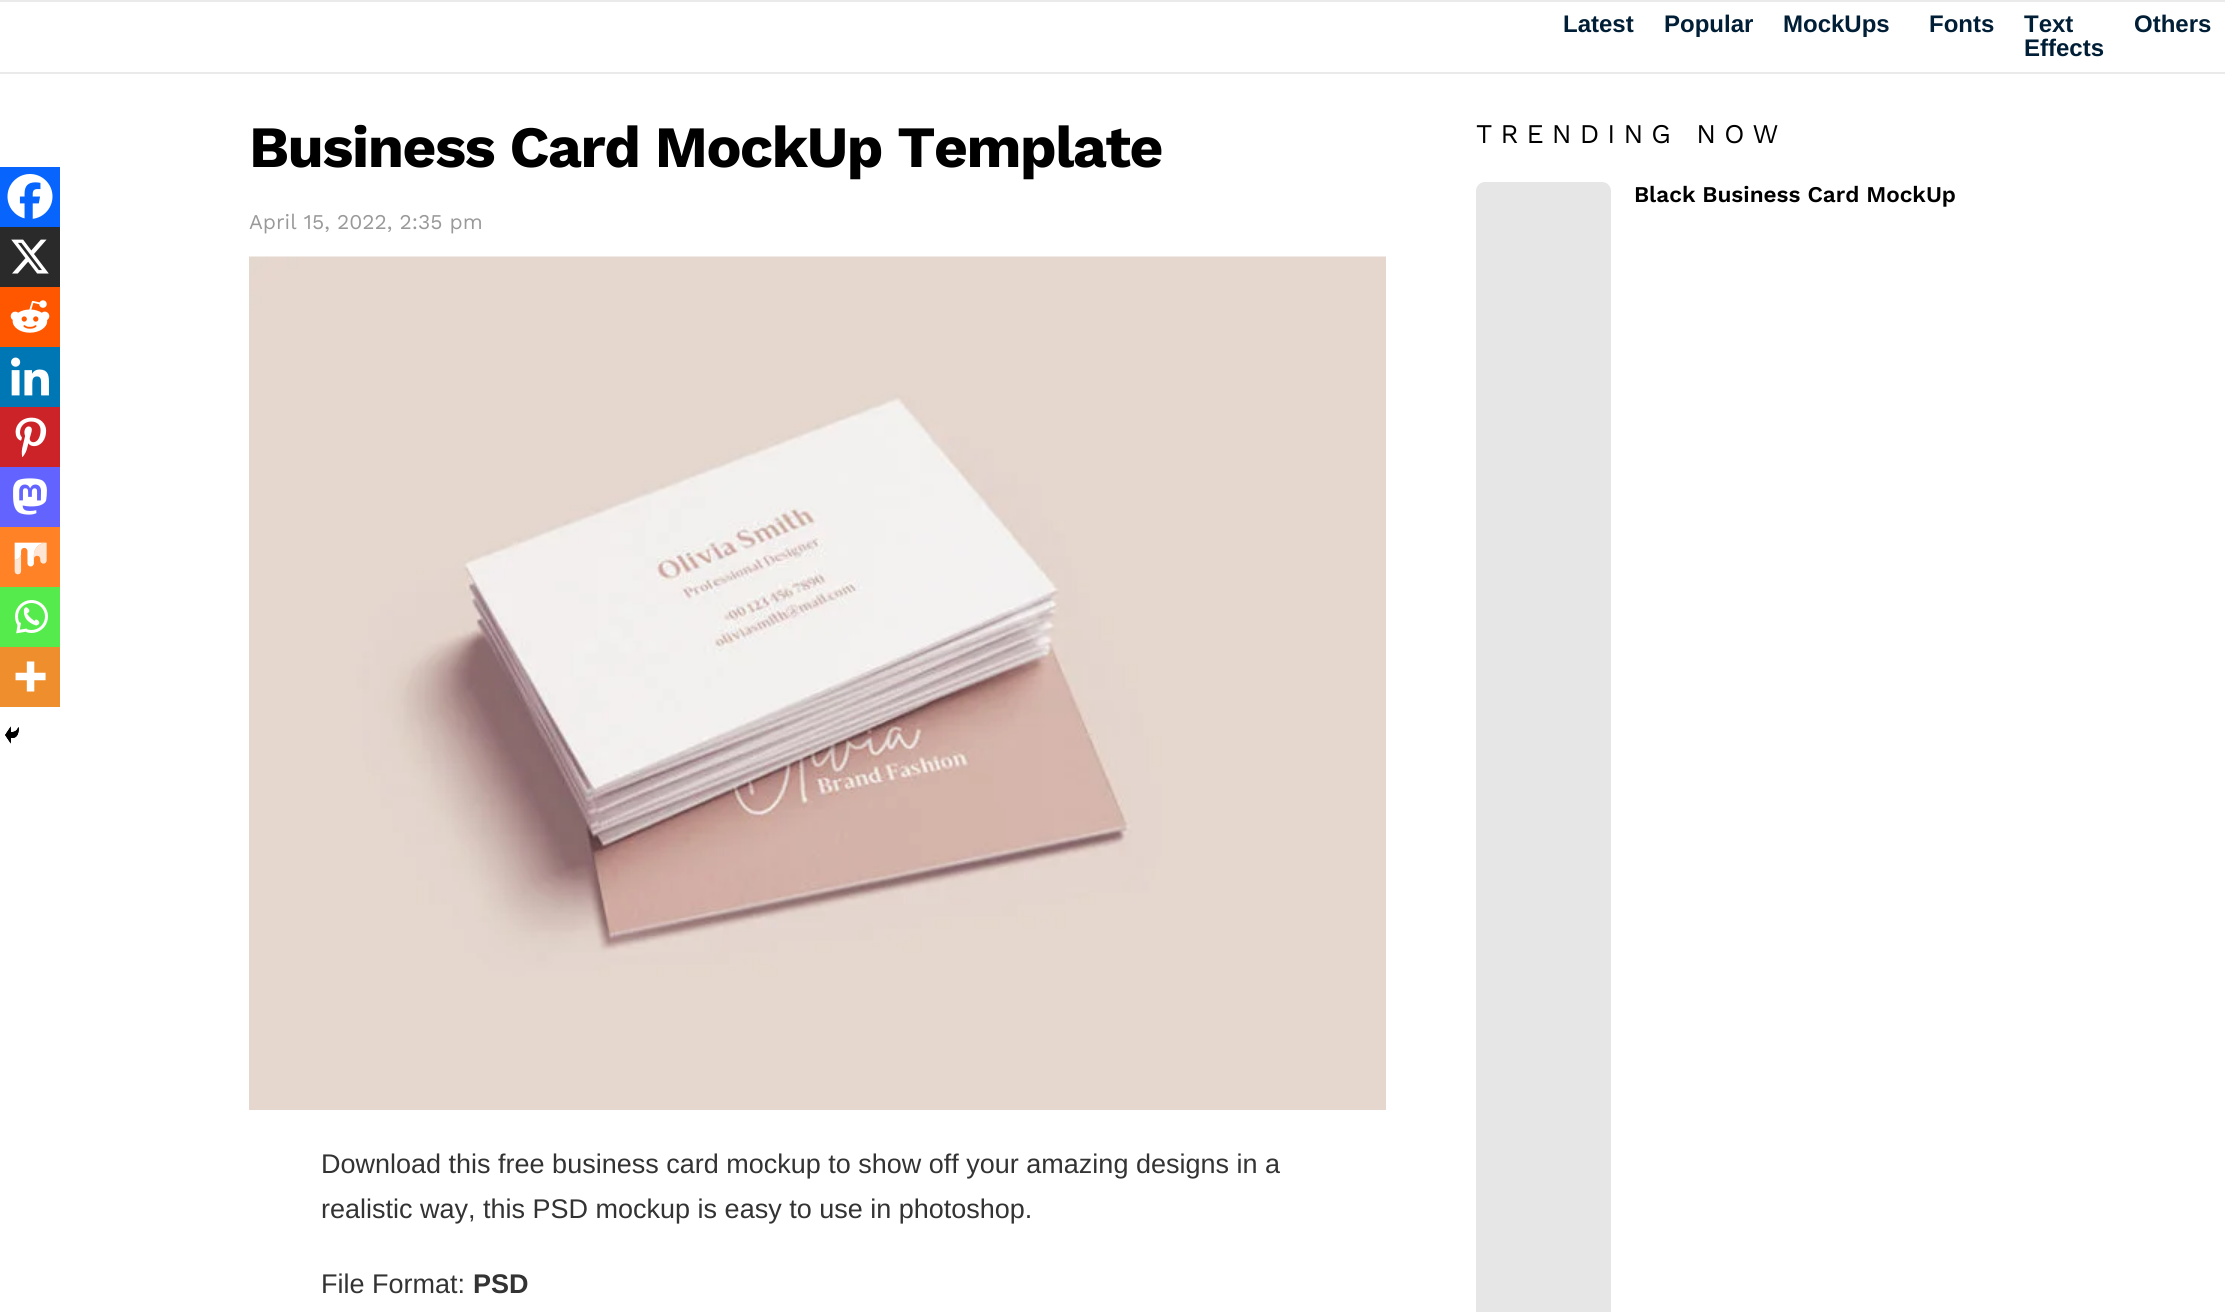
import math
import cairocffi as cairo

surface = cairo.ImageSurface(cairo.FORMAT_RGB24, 2225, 1312)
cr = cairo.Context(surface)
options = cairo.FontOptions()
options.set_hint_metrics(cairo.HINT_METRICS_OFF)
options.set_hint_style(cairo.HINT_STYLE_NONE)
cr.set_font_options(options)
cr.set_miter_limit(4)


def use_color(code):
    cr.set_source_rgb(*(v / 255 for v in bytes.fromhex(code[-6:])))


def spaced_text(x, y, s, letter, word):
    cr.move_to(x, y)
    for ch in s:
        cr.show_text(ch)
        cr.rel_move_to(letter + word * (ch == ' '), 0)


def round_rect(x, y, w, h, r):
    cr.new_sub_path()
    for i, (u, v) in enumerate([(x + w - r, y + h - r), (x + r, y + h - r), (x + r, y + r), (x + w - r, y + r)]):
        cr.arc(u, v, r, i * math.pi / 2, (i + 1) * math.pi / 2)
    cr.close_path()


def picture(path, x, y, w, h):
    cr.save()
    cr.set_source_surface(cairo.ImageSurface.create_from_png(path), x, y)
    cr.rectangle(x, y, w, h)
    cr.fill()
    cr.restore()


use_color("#ffffff")
cr.paint()
use_color("#eaeaea")
cr.rectangle(0, 0, 2225, 2)
cr.fill()
cr.select_font_face("Liberation Sans", cairo.FONT_SLANT_NORMAL, cairo.FONT_WEIGHT_BOLD)
cr.set_font_size(24)
use_color("#001e36")
cr.move_to(1563, 32)
cr.show_text("Latest")
cr.move_to(1664, 32)
cr.show_text("Popular")
cr.move_to(1783, 32)
cr.show_text("MockUps")
cr.move_to(1929, 32)
cr.show_text("Fonts")
cr.move_to(2024, 32)
cr.show_text("Text")
cr.move_to(2024, 56)
cr.show_text("Effects")
cr.move_to(2134, 32)
cr.show_text("Others")
use_color("#eaeaea")
cr.rectangle(0, 72, 2225, 2)
cr.fill()
use_color("#0765fe")
cr.rectangle(0, 167, 60, 60)
cr.fill()
picture("img1.png", 7, 174, 46, 45)
use_color("#2a2a2a")
cr.rectangle(0, 227, 60, 60)
cr.fill()
picture("img2.png", 11, 239, 38, 35)
use_color("#ff5700")
cr.rectangle(0, 287, 60, 60)
cr.fill()
picture("img3.png", 10, 300, 40, 33)
use_color("#0077b5")
cr.rectangle(0, 347, 60, 60)
cr.fill()
picture("img4.png", 11, 357, 38, 39)
use_color("#cc2329")
cr.rectangle(0, 407, 60, 60)
cr.fill()
picture("img5.png", 15, 417, 32, 40)
use_color("#6364ff")
cr.rectangle(0, 467, 60, 60)
cr.fill()
picture("img6.png", 13, 478, 34, 37)
use_color("#ff8226")
cr.rectangle(0, 527, 60, 60)
cr.fill()
picture("img7.png", 14, 542, 33, 33)
use_color("#55eb4c")
cr.rectangle(0, 587, 60, 60)
cr.fill()
picture("img8.png", 15, 600, 33, 34)
use_color("#ee8e2d")
cr.rectangle(0, 647, 60, 60)
cr.fill()
picture("img9.png", 15, 661, 31, 31)
picture("img12.png", 5, 726, 14, 18)
picture("img10.png", 5, 726, 14, 18)
cr.select_font_face("Work Sans", cairo.FONT_SLANT_NORMAL, cairo.FONT_WEIGHT_BOLD)
cr.set_font_size(58.5)
use_color("#000000")
spaced_text(249, 167, "Business Card MockUp Template", -1.45, 0)
cr.select_font_face("Work Sans")
cr.set_font_size(21)
use_color("#999999")
cr.move_to(249, 229)
cr.show_text("April 15, 2022, 2:35 pm")
picture("img11.png", 249, 256, 1137, 854)
cr.select_font_face("Liberation Sans")
cr.set_font_size(27)
use_color("#333333")
cr.move_to(321, 1173)
cr.show_text("Download this free business card mockup to show off your amazing designs in a")
cr.move_to(321, 1218)
cr.show_text("realistic way, this PSD mockup is easy to use in photoshop.")
cr.move_to(321, 1293)
cr.show_text("File Format:")
cr.select_font_face("Liberation Sans", cairo.FONT_SLANT_NORMAL, cairo.FONT_WEIGHT_BOLD)
cr.move_to(473, 1293)
cr.show_text("PSD")
cr.select_font_face("Work Sans")
use_color("#000000")
spaced_text(1476, 143, "TRENDING NOW", 8.1, 0)
use_color("#e6e6e6")
round_rect(1476, 182, 135, 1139, 9)
cr.fill()
cr.select_font_face("Work Sans SemiBold")
cr.set_font_size(22.5)
use_color("#000000")
cr.move_to(1634, 202)
cr.show_text("Black Business Card MockUp")
surface.write_to_png("result.png")
